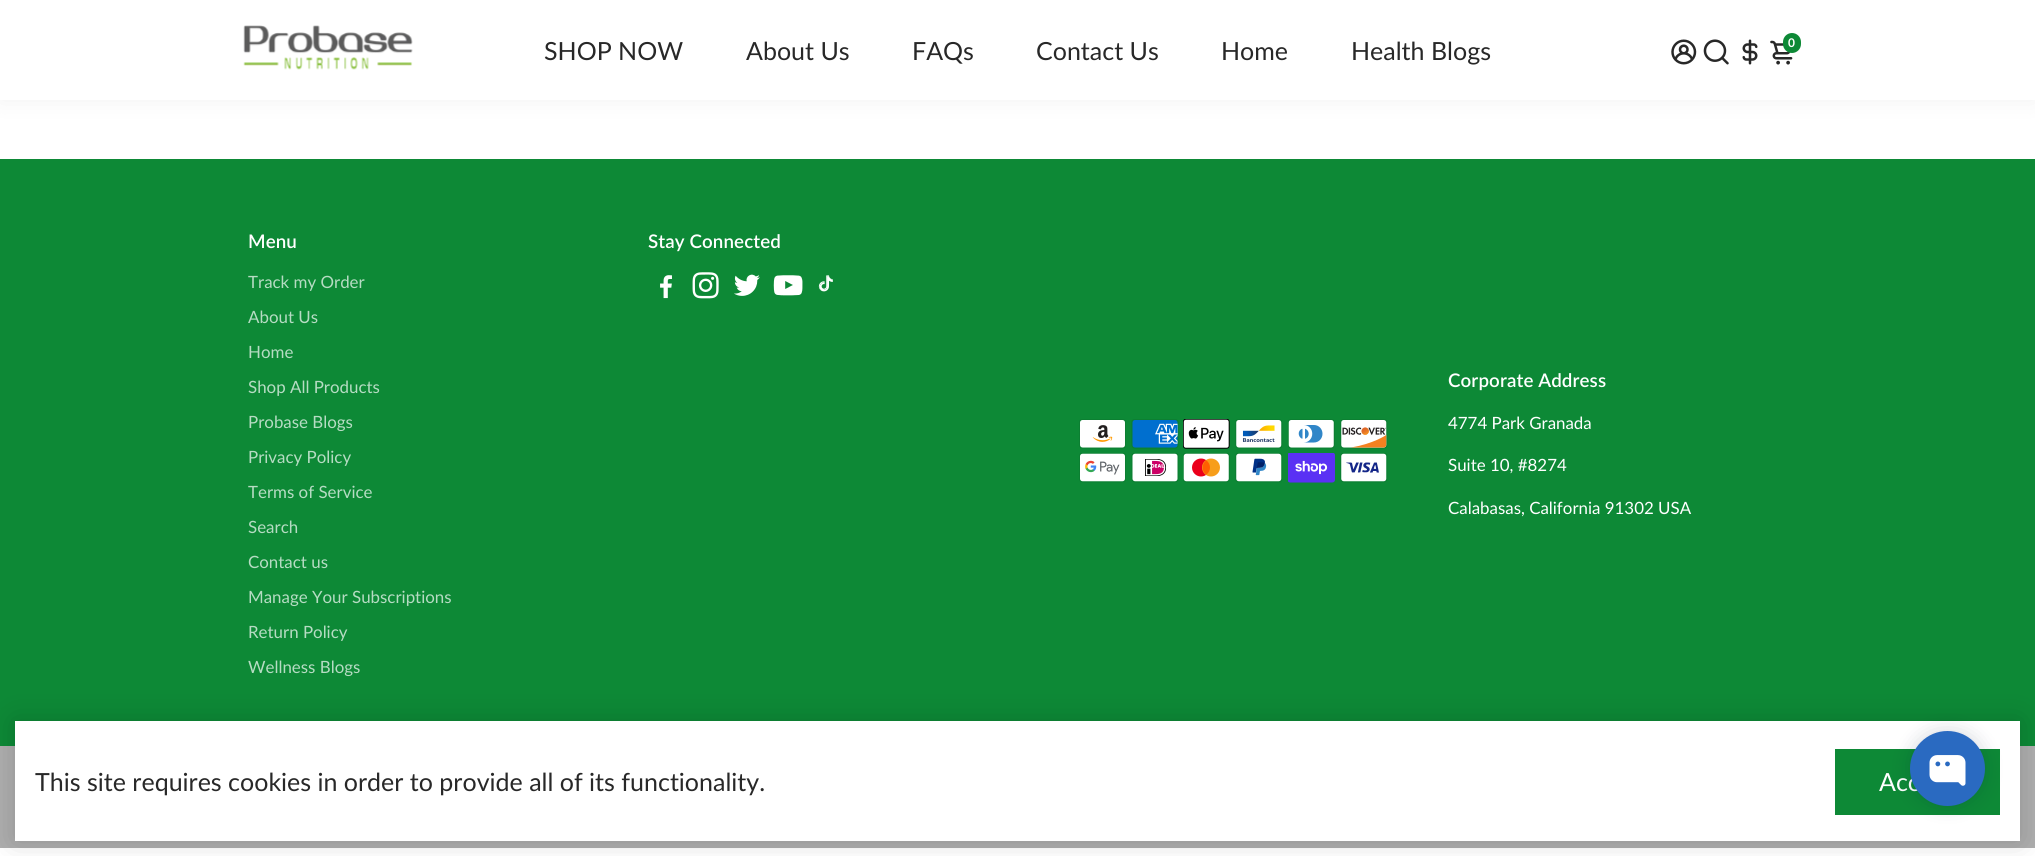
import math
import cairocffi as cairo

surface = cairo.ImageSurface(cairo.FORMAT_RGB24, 2035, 856)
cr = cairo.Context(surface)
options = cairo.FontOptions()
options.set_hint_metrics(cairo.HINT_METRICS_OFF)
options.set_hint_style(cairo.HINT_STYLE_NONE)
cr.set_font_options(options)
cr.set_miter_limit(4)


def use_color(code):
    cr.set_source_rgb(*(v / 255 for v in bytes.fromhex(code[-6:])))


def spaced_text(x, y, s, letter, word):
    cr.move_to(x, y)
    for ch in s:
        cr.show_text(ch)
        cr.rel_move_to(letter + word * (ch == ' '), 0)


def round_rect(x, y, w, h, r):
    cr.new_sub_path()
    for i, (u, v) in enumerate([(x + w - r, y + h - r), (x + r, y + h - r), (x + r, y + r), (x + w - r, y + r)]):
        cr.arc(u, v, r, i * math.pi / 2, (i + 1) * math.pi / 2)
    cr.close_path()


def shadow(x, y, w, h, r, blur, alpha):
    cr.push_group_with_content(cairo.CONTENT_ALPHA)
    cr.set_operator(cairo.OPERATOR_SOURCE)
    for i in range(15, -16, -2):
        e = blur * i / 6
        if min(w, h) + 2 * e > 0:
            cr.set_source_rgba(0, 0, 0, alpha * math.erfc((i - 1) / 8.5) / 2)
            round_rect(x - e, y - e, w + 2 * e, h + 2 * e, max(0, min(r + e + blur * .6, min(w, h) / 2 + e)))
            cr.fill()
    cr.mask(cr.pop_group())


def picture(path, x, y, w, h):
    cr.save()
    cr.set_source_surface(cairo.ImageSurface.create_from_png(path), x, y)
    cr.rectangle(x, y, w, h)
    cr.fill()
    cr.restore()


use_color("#ffffff")
cr.paint()
use_color("#000000")
shadow(0, 0, 2035, 100, 0, 12.5, 0.06)
use_color("#ffffff")
cr.rectangle(0, 0, 2035, 100)
cr.fill()
picture("img1.png", 243, 25, 170, 45)
cr.select_font_face("Lato")
cr.set_font_size(25)
use_color("#282828")
cr.move_to(544, 60)
cr.show_text("SHOP NOW")
cr.move_to(746, 60)
cr.show_text("About Us")
cr.move_to(912, 60)
cr.show_text("FAQs")
cr.move_to(1036, 60)
cr.show_text("Contact Us")
cr.move_to(1221, 60)
cr.show_text("Home")
cr.move_to(1351, 60)
cr.show_text("Health Blogs")
picture("img2.png", 1671, 39, 26, 26)
picture("img3.png", 1703, 39, 26, 26)
picture("img4.png", 1742, 39, 16, 26)
picture("img5.png", 1770, 40, 23, 25)
use_color("#0d8936")
round_rect(1783, 33, 18, 20, 9)
cr.fill()
cr.select_font_face("Lato", cairo.FONT_SLANT_NORMAL, cairo.FONT_WEIGHT_BOLD)
cr.set_font_size(12)
use_color("#ffffff")
cr.move_to(1788, 47)
cr.show_text("0")
use_color("#0d8936")
cr.rectangle(0, 159, 2035, 587)
cr.fill()
cr.select_font_face("Lato SemiBold")
cr.set_font_size(18.75)
use_color("#ffffff")
spaced_text(248, 248, "Menu", 0.1, 0)
cr.select_font_face("Lato")
cr.set_font_size(16.9)
use_color("#b6dcc3")
cr.move_to(248, 288)
cr.show_text("Track my Order")
cr.move_to(248, 323)
cr.show_text("About Us")
cr.move_to(248, 358)
cr.show_text("Home")
cr.move_to(248, 393)
cr.show_text("Shop All Products")
cr.move_to(248, 428)
cr.show_text("Probase Blogs")
cr.move_to(248, 463)
cr.show_text("Privacy Policy")
cr.move_to(248, 498)
cr.show_text("Terms of Service")
cr.move_to(248, 533)
cr.show_text("Search")
cr.move_to(248, 568)
cr.show_text("Contact us")
cr.move_to(248, 603)
cr.show_text("Manage Your Subscriptions")
cr.move_to(248, 638)
cr.show_text("Return Policy")
cr.move_to(248, 673)
cr.show_text("Wellness Blogs")
cr.select_font_face("Lato SemiBold")
cr.set_font_size(18.75)
use_color("#ffffff")
spaced_text(648, 248, "Stay Connected", 0.1, 0)
picture("img6.png", 660, 275, 12, 24)
picture("img7.png", 692, 272, 27, 27)
picture("img8.png", 734, 274, 26, 22)
picture("img9.png", 773, 275, 30, 21)
picture("img10.png", 818, 275, 15, 17)
picture("img11.png", 1079, 419, 47, 30)
picture("img12.png", 1131, 419, 48, 30)
picture("img13.png", 1183, 419, 47, 30)
picture("img14.png", 1235, 419, 48, 30)
picture("img15.png", 1288, 419, 47, 30)
picture("img16.png", 1340, 419, 48, 30)
picture("img17.png", 1079, 453, 47, 30)
picture("img18.png", 1131, 453, 48, 30)
picture("img19.png", 1183, 453, 47, 30)
picture("img20.png", 1235, 453, 48, 30)
picture("img21.png", 1288, 453, 47, 30)
picture("img22.png", 1340, 453, 48, 30)
spaced_text(1448, 387, "Corporate Address", 0.1, 0)
cr.select_font_face("Lato")
cr.set_font_size(16.9)
cr.move_to(1448, 429)
cr.show_text("4774 Park Granada")
cr.move_to(1448, 471)
cr.show_text("Suite 10, #8274")
cr.move_to(1448, 514)
cr.show_text("Calabasas, California 91302 USA")
use_color("#aeaeae")
cr.rectangle(0, 746, 2035, 102)
cr.fill()
use_color("#000000")
shadow(15, 721, 2005, 120, 0, 15, 0.16)
use_color("#ffffff")
cr.rectangle(15, 721, 2005, 120)
cr.fill()
cr.set_font_size(25)
use_color("#282828")
cr.move_to(35, 791)
cr.show_text("This site requires cookies in order to provide all of its functionality.")
use_color("#0d8936")
cr.rectangle(1835, 749, 165, 66)
cr.fill()
use_color("#ffffff")
cr.move_to(1879, 791)
cr.show_text("Acc")
use_color("#00122e")
shadow(1910, 731, 75, 75, 37.5, 10, 0.16)
use_color("#2a6ac1")
cr.arc(1947.5, 768.5, 37.5, 0, 2 * math.pi)
cr.fill()
picture("img23.png", 1929, 755, 37, 31)
surface.write_to_png("result.png")
